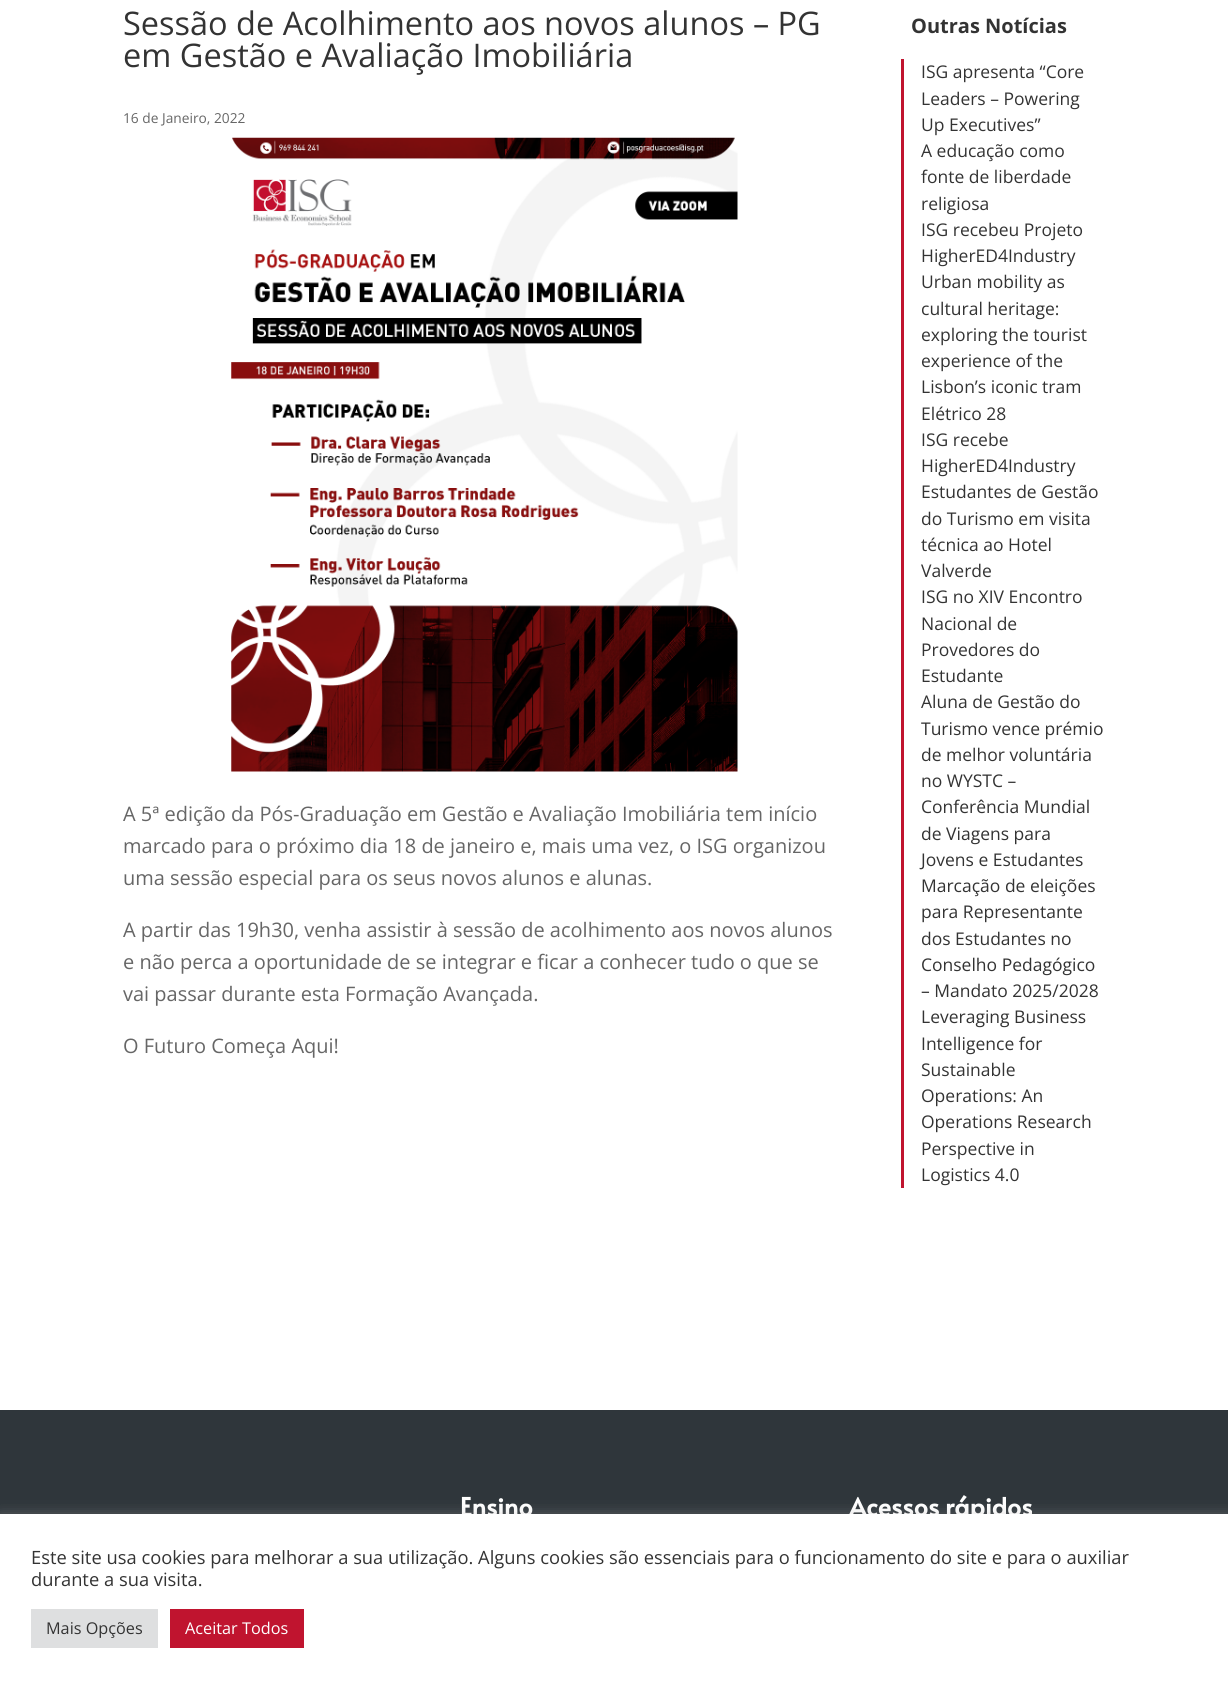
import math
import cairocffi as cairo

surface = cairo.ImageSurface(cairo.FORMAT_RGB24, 1228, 1685)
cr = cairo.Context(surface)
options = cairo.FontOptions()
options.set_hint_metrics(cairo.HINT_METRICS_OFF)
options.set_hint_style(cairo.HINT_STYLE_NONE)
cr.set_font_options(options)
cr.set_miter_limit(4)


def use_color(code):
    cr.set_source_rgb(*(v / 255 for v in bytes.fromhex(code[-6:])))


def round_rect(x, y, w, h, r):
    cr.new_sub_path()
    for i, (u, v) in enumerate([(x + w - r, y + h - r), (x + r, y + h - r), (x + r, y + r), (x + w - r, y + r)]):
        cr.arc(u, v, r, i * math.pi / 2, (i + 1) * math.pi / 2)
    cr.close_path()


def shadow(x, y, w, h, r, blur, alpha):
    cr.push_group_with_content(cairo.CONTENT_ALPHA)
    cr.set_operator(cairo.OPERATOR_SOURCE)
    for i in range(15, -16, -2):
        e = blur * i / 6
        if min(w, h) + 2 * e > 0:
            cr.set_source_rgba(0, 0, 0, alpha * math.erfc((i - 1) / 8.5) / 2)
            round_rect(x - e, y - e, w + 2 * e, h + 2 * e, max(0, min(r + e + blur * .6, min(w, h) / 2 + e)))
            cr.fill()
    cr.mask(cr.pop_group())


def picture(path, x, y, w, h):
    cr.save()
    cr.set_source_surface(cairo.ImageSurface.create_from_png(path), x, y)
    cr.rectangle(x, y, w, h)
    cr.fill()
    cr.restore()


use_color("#ffffff")
cr.paint()
cr.select_font_face("Open Sans")
cr.set_font_size(32.5)
use_color("#333333")
cr.move_to(123, 35)
cr.show_text("Sessão de Acolhimento aos novos alunos – PG")
cr.move_to(123, 67)
cr.show_text("em Gestão e Avaliação Imobiliária")
cr.set_font_size(13.75)
use_color("#666666")
cr.move_to(123, 123)
cr.show_text("16 de Janeiro, 2022")
picture("img1.png", 231, 137, 507, 635)
cr.set_font_size(20)
cr.move_to(123, 821)
cr.show_text("A 5ª edição da Pós-Graduação em Gestão e Avaliação Imobiliária tem início")
cr.move_to(123, 853)
cr.show_text("marcado para o próximo dia 18 de janeiro e, mais uma vez, o ISG organizou")
cr.move_to(123, 885)
cr.show_text("uma sessão especial para os seus novos alunos e alunas.")
cr.move_to(123, 937)
cr.show_text("A partir das 19h30, venha assistir à sessão de acolhimento aos novos alunos")
cr.move_to(123, 969)
cr.show_text("e não perca a oportunidade de se integrar e ficar a conhecer tudo o que se")
cr.move_to(123, 1001)
cr.show_text("vai passar durante esta Formação Avançada.")
cr.move_to(123, 1053)
cr.show_text("O Futuro Começa Aqui!")
cr.select_font_face("Open Sans", cairo.FONT_SLANT_NORMAL, cairo.FONT_WEIGHT_BOLD)
use_color("#333333")
cr.move_to(911, 33)
cr.show_text("Outras Notícias")
use_color("#c0142f")
cr.rectangle(901, 59, 3, 1129)
cr.fill()
cr.select_font_face("Open Sans")
cr.set_font_size(17.5)
use_color("#333333")
cr.move_to(921, 78)
cr.show_text("ISG apresenta “Core")
cr.move_to(921, 105)
cr.show_text("Leaders – Powering")
cr.move_to(921, 131)
cr.show_text("Up Executives”")
cr.move_to(921, 157)
cr.show_text("A educação como")
cr.move_to(921, 183)
cr.show_text("fonte de liberdade")
cr.move_to(921, 210)
cr.show_text("religiosa")
cr.move_to(921, 236)
cr.show_text("ISG recebeu Projeto")
cr.move_to(921, 262)
cr.show_text("HigherED4Industry")
cr.move_to(921, 288)
cr.show_text("Urban mobility as")
cr.move_to(921, 315)
cr.show_text("cultural heritage:")
cr.move_to(921, 341)
cr.show_text("exploring the tourist")
cr.move_to(921, 367)
cr.show_text("experience of the")
cr.move_to(921, 393)
cr.show_text("Lisbon’s iconic tram")
cr.move_to(921, 420)
cr.show_text("Elétrico 28")
cr.move_to(921, 446)
cr.show_text("ISG recebe")
cr.move_to(921, 472)
cr.show_text("HigherED4Industry")
cr.move_to(921, 498)
cr.show_text("Estudantes de Gestão")
cr.move_to(921, 525)
cr.show_text("do Turismo em visita")
cr.move_to(921, 551)
cr.show_text("técnica ao Hotel")
cr.move_to(921, 577)
cr.show_text("Valverde")
cr.move_to(921, 603)
cr.show_text("ISG no XIV Encontro")
cr.move_to(921, 630)
cr.show_text("Nacional de")
cr.move_to(921, 656)
cr.show_text("Provedores do")
cr.move_to(921, 682)
cr.show_text("Estudante")
cr.move_to(921, 708)
cr.show_text("Aluna de Gestão do")
cr.move_to(921, 735)
cr.show_text("Turismo vence prémio")
cr.move_to(921, 761)
cr.show_text("de melhor voluntária")
cr.move_to(921, 787)
cr.show_text("no WYSTC –")
cr.move_to(921, 813)
cr.show_text("Conferência Mundial")
cr.move_to(921, 840)
cr.show_text("de Viagens para")
cr.move_to(921, 866)
cr.show_text("Jovens e Estudantes")
cr.move_to(921, 892)
cr.show_text("Marcação de eleições")
cr.move_to(921, 918)
cr.show_text("para Representante")
cr.move_to(921, 945)
cr.show_text("dos Estudantes no")
cr.move_to(921, 971)
cr.show_text("Conselho Pedagógico")
cr.move_to(921, 997)
cr.show_text("– Mandato 2025/2028")
cr.move_to(921, 1023)
cr.show_text("Leveraging Business")
cr.move_to(921, 1050)
cr.show_text("Intelligence for")
cr.move_to(921, 1076)
cr.show_text("Sustainable")
cr.move_to(921, 1102)
cr.show_text("Operations: An")
cr.move_to(921, 1128)
cr.show_text("Operations Research")
cr.move_to(921, 1155)
cr.show_text("Perspective in")
cr.move_to(921, 1181)
cr.show_text("Logistics 4.0")
use_color("#2f363b")
cr.rectangle(0, 1410, 1228, 104)
cr.fill()
cr.select_font_face("Alata", cairo.FONT_SLANT_NORMAL, cairo.FONT_WEIGHT_BOLD)
cr.set_font_size(25)
use_color("#ffffff")
cr.move_to(460, 1516)
cr.show_text("Ensino")
cr.move_to(849, 1516)
cr.show_text("Acessos rápidos")
use_color("#acabab")
shadow(0, 1513, 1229, 171, 0, 6, 0.3)
use_color("#ffffff")
cr.rectangle(0, 1514, 1228, 171)
cr.fill()
cr.select_font_face("Open Sans")
cr.set_font_size(18.33)
use_color("#333333")
cr.move_to(31, 1564)
cr.show_text("Este site usa cookies para melhorar a sua utilização. Alguns cookies são essenciais para o funcionamento do site e para o auxiliar")
cr.move_to(31, 1586)
cr.show_text("durante a sua visita.")
use_color("#dedfe0")
cr.rectangle(31, 1609, 127, 39)
cr.fill()
cr.set_font_size(16.25)
use_color("#333333")
cr.move_to(46, 1634)
cr.show_text("Mais Opções")
use_color("#c0142f")
cr.rectangle(170, 1609, 134, 39)
cr.fill()
use_color("#ffffff")
cr.move_to(185, 1634)
cr.show_text("Aceitar Todos")
surface.write_to_png("result.png")
